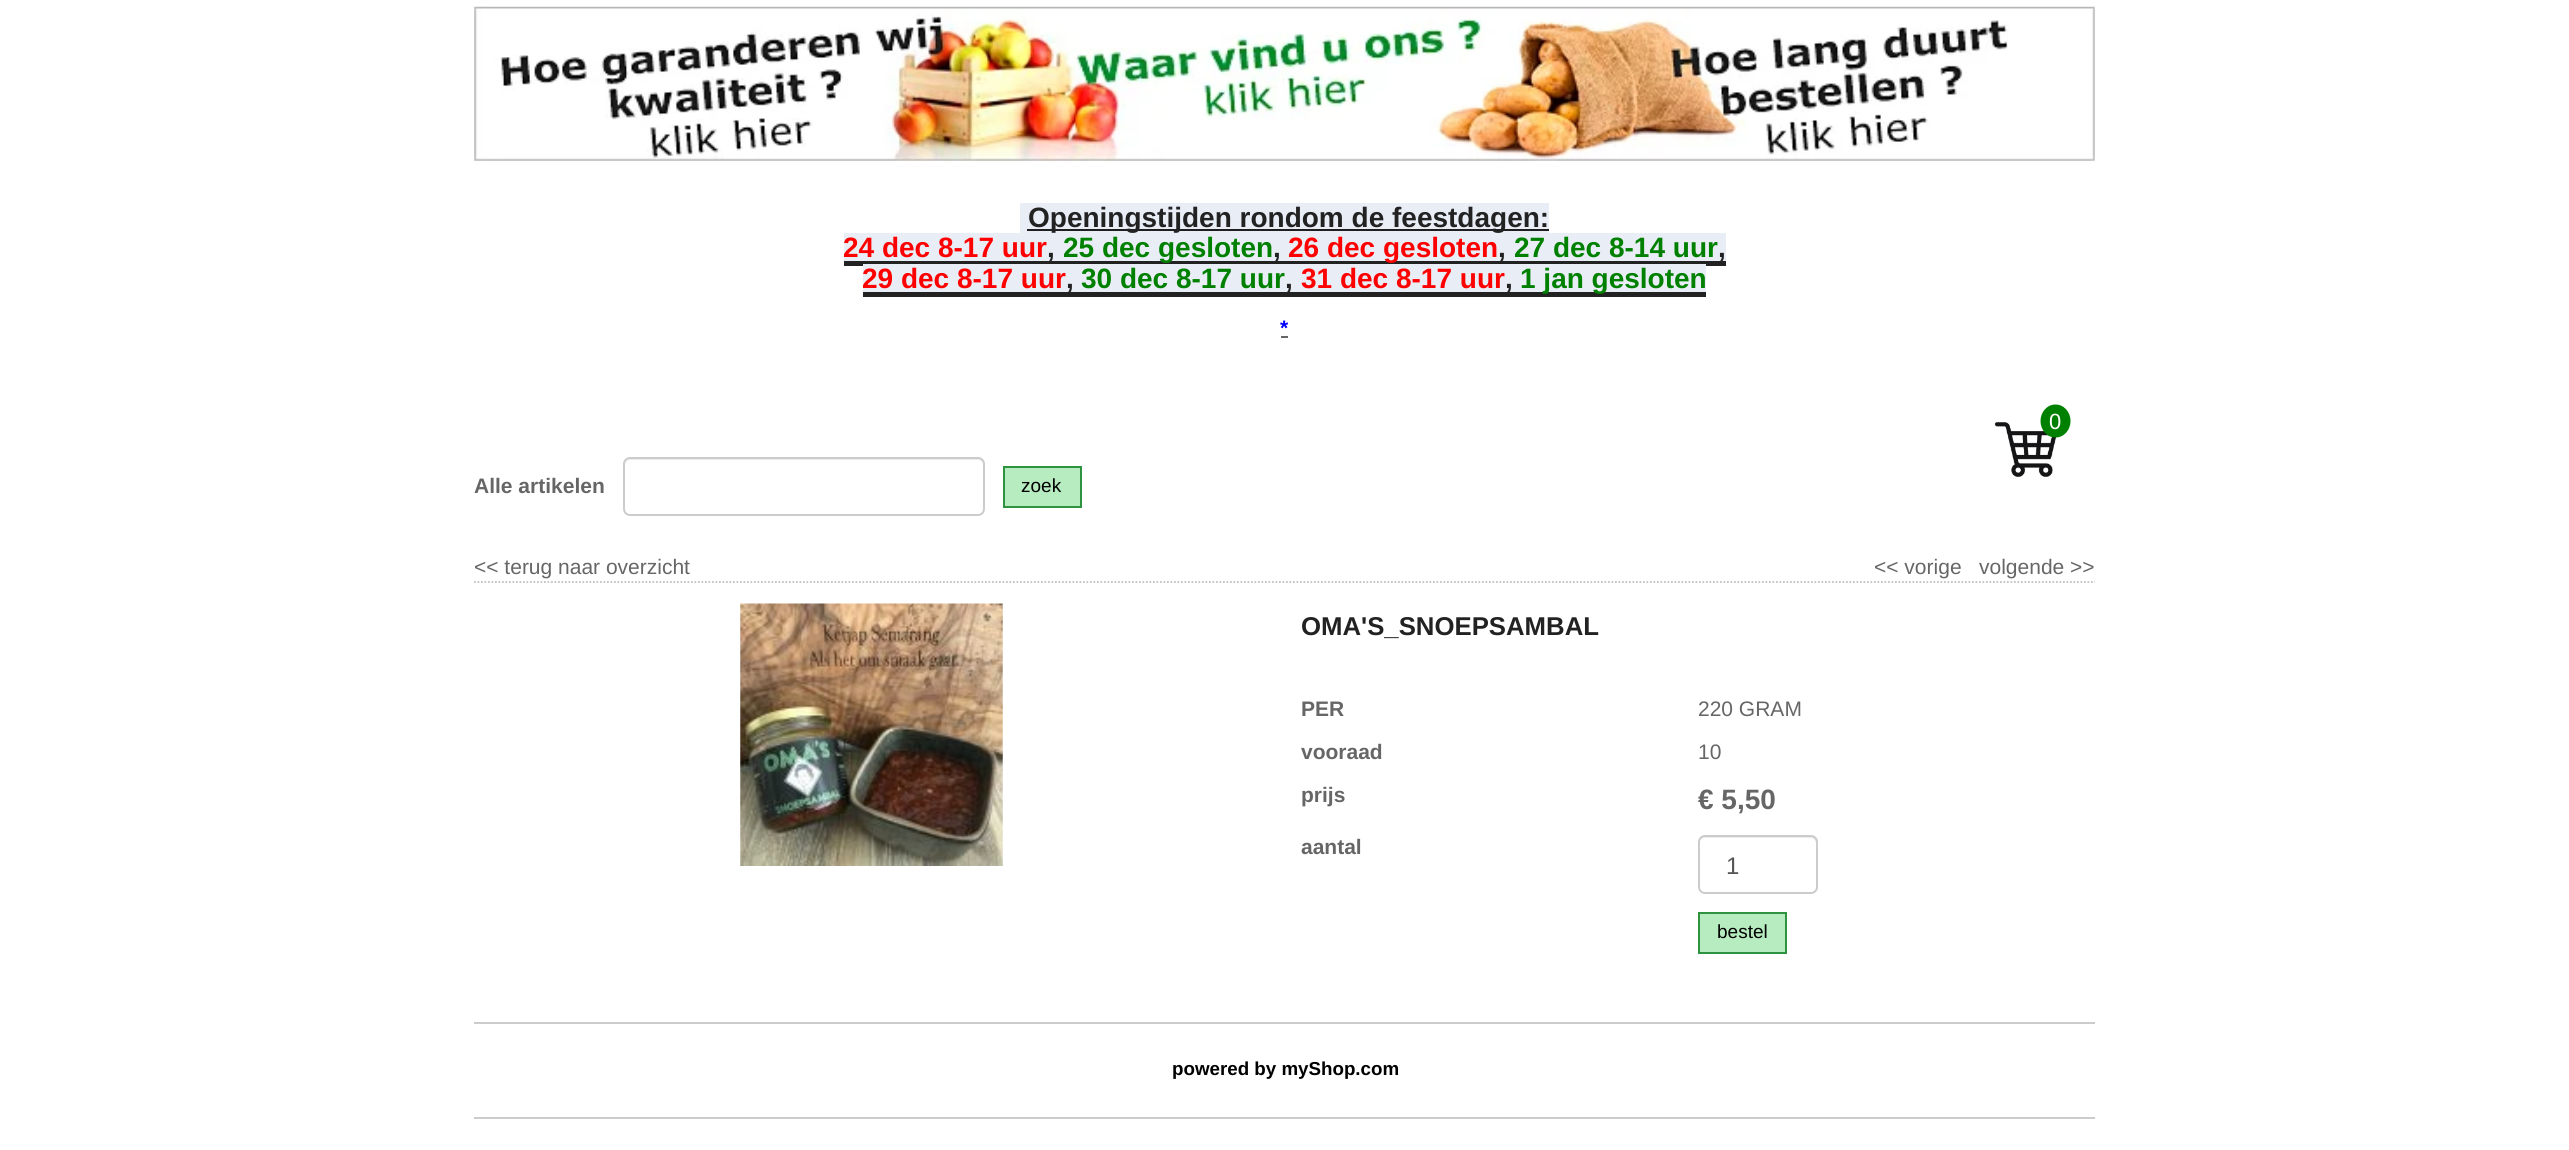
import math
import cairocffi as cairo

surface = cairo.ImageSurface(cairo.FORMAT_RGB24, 2569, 1150)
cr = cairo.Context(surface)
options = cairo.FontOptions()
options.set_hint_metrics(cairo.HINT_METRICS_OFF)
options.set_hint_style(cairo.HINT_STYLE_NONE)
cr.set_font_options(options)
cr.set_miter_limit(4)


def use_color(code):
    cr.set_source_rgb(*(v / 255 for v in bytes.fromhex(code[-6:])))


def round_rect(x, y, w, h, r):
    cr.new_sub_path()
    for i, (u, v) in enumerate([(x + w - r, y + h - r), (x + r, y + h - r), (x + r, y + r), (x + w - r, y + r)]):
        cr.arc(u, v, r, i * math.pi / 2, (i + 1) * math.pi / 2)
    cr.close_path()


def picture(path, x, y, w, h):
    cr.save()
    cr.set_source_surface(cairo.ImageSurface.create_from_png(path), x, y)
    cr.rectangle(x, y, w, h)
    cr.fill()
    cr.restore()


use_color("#ffffff")
cr.paint()
picture("img1.png", 474, 6, 1621, 155)
use_color("#e9eef6")
cr.rectangle(1020, 203, 529, 30)
cr.fill()
use_color("#1f1f1f")
cr.rectangle(1027, 229, 522, 2)
cr.fill()
cr.select_font_face("Liberation Sans", cairo.FONT_SLANT_NORMAL, cairo.FONT_WEIGHT_BOLD)
cr.set_font_size(28)
use_color("#222222")
cr.move_to(1028, 227)
cr.show_text("Openingstijden rondom de feestdagen:")
use_color("#e9eef6")
cr.rectangle(844, 233, 875, 28)
cr.fill()
use_color("#ff0000")
cr.move_to(843, 257)
cr.show_text("24 dec 8-17 uur")
use_color("#222222")
cr.rectangle(1047, 261, 467, 3)
cr.fill()
cr.move_to(1047, 257)
cr.show_text(",")
cr.rectangle(844, 261, 203, 5)
cr.fill()
use_color("#008000")
cr.move_to(1063, 257)
cr.show_text("25 dec gesloten")
use_color("#222222")
cr.move_to(1273, 257)
cr.show_text(",")
use_color("#ff0000")
cr.move_to(1288, 257)
cr.show_text("26 dec gesloten")
use_color("#222222")
cr.move_to(1498, 257)
cr.show_text(",")
use_color("#008000")
cr.move_to(1514, 257)
cr.show_text("27 dec 8-14 uur")
use_color("#e9eef6")
cr.rectangle(1719, 233, 7, 30)
cr.fill()
use_color("#222222")
cr.rectangle(1719, 261, 7, 5)
cr.fill()
cr.move_to(1718, 257)
cr.show_text(",")
cr.rectangle(1514, 261, 205, 5)
cr.fill()
use_color("#e9eef6")
cr.rectangle(863, 264, 843, 28)
cr.fill()
use_color("#ff0000")
cr.move_to(862, 288)
cr.show_text("29 dec 8-17 uur")
use_color("#222222")
cr.rectangle(863, 292, 843, 5)
cr.fill()
cr.move_to(1066, 288)
cr.show_text(",")
use_color("#008000")
cr.move_to(1081, 288)
cr.show_text("30 dec 8-17 uur")
use_color("#222222")
cr.move_to(1285, 288)
cr.show_text(",")
use_color("#ff0000")
cr.move_to(1301, 288)
cr.show_text("31 dec 8-17 uur")
use_color("#222222")
cr.move_to(1505, 288)
cr.show_text(",")
use_color("#008000")
cr.move_to(1520, 288)
cr.show_text("1 jan gesloten")
cr.set_font_size(21)
use_color("#0000ff")
cr.move_to(1280, 335)
cr.show_text("*")
use_color("#666666")
cr.rectangle(1281, 336, 7, 2)
cr.fill()
picture("img2.png", 1994, 422, 64, 56)
use_color("#008000")
cr.new_path()
cr.move_to(2055.5, 404.5)
cr.curve_to(2064, 404.5, 2070.5, 412, 2070.5, 421)
cr.curve_to(2070.5, 430, 2064, 437.5, 2055.5, 437.5)
cr.curve_to(2047, 437.5, 2040.5, 430, 2040.5, 421)
cr.curve_to(2040.5, 412, 2047, 404.5, 2055.5, 404.5)
cr.close_path()
cr.fill()
cr.select_font_face("Liberation Sans")
cr.set_font_size(22)
use_color("#ffffff")
cr.move_to(2049, 429)
cr.show_text("0")
cr.select_font_face("Liberation Sans", cairo.FONT_SLANT_NORMAL, cairo.FONT_WEIGHT_BOLD)
cr.set_font_size(21)
use_color("#666666")
cr.move_to(474, 493)
cr.show_text("Alle artikelen")
use_color("#ececec")
cr.new_path()
cr.move_to(630, 460)
cr.line_to(978, 460)
cr.curve_to(981, 460, 984, 463, 984, 466)
cr.curve_to(984, 463, 983, 459, 979, 459)
cr.line_to(630, 459)
cr.curve_to(626, 459, 625, 463, 625, 466)
cr.curve_to(625, 463, 627, 460, 630, 460)
cr.close_path()
cr.fill()
round_rect(624, 458, 360, 57, 6)
use_color("#cccccc")
cr.stroke()
use_color("#b6ecbf")
cr.rectangle(1004, 467, 77, 40)
cr.fill_preserve()
use_color("#2f923f")
cr.stroke()
cr.select_font_face("Liberation Sans")
cr.set_font_size(19)
use_color("#000000")
cr.move_to(1021, 492)
cr.show_text("zoek")
cr.new_path()
cr.move_to(474, 582)
cr.line_to(2095, 582)
use_color("#c1c1c1")
cr.set_line_width(1.8)
cr.set_dash([1.75, 1.75])
cr.stroke()
cr.set_font_size(21)
use_color("#666666")
cr.move_to(474, 574)
cr.show_text("<< terug naar overzicht")
cr.move_to(1874, 574)
cr.show_text("<< vorige")
cr.move_to(1979, 574)
cr.show_text("volgende >>")
picture("img3.png", 740, 603, 263, 263)
cr.select_font_face("Liberation Sans", cairo.FONT_SLANT_NORMAL, cairo.FONT_WEIGHT_BOLD)
cr.set_font_size(25.75)
use_color("#222222")
cr.move_to(1301, 635)
cr.show_text("OMA'S_SNOEPSAMBAL")
cr.set_font_size(21)
use_color("#666666")
cr.move_to(1301, 716)
cr.show_text("PER")
cr.select_font_face("Liberation Sans")
cr.move_to(1698, 716)
cr.show_text("220 GRAM")
cr.select_font_face("Liberation Sans", cairo.FONT_SLANT_NORMAL, cairo.FONT_WEIGHT_BOLD)
cr.move_to(1301, 759)
cr.show_text("vooraad")
cr.select_font_face("Liberation Sans")
cr.move_to(1698, 759)
cr.show_text("10")
cr.select_font_face("Liberation Sans", cairo.FONT_SLANT_NORMAL, cairo.FONT_WEIGHT_BOLD)
cr.move_to(1301, 802)
cr.show_text("prijs")
cr.set_font_size(28)
cr.move_to(1698, 809)
cr.show_text("€ 5,50")
cr.set_font_size(21)
cr.move_to(1301, 854)
cr.show_text("aantal")
use_color("#ececec")
cr.new_path()
cr.move_to(1704, 838)
cr.line_to(1811, 838)
cr.curve_to(1814, 838, 1816, 841, 1816, 844)
cr.line_to(1816, 889)
cr.line_to(1815, 892)
cr.curve_to(1816, 891, 1817, 889, 1817, 888)
cr.line_to(1817, 842)
cr.curve_to(1817, 839, 1815, 837, 1812, 837)
cr.line_to(1704, 837)
cr.curve_to(1701, 837, 1699, 839, 1699, 842)
cr.line_to(1699, 844)
cr.curve_to(1699, 841, 1702, 838, 1704, 838)
cr.close_path()
cr.fill()
round_rect(1699, 836, 118, 57, 6)
use_color("#cccccc")
cr.set_line_width(2)
cr.set_dash([])
cr.stroke()
cr.select_font_face("Liberation Sans")
cr.set_font_size(24)
use_color("#555555")
cr.move_to(1726, 874)
cr.show_text("1")
use_color("#b6ecbf")
cr.rectangle(1699, 913, 87, 40)
cr.fill_preserve()
use_color("#2f923f")
cr.stroke()
cr.set_font_size(19)
use_color("#000000")
cr.move_to(1717, 938)
cr.show_text("bestel")
use_color("#cccccc")
cr.rectangle(474, 1022, 1621, 2)
cr.fill()
cr.rectangle(474, 1117, 1621, 2)
cr.fill()
cr.select_font_face("Liberation Sans", cairo.FONT_SLANT_NORMAL, cairo.FONT_WEIGHT_BOLD)
cr.set_font_size(18.75)
use_color("#000000")
cr.move_to(1172, 1075)
cr.show_text("powered by myShop.com")
surface.write_to_png("result.png")
